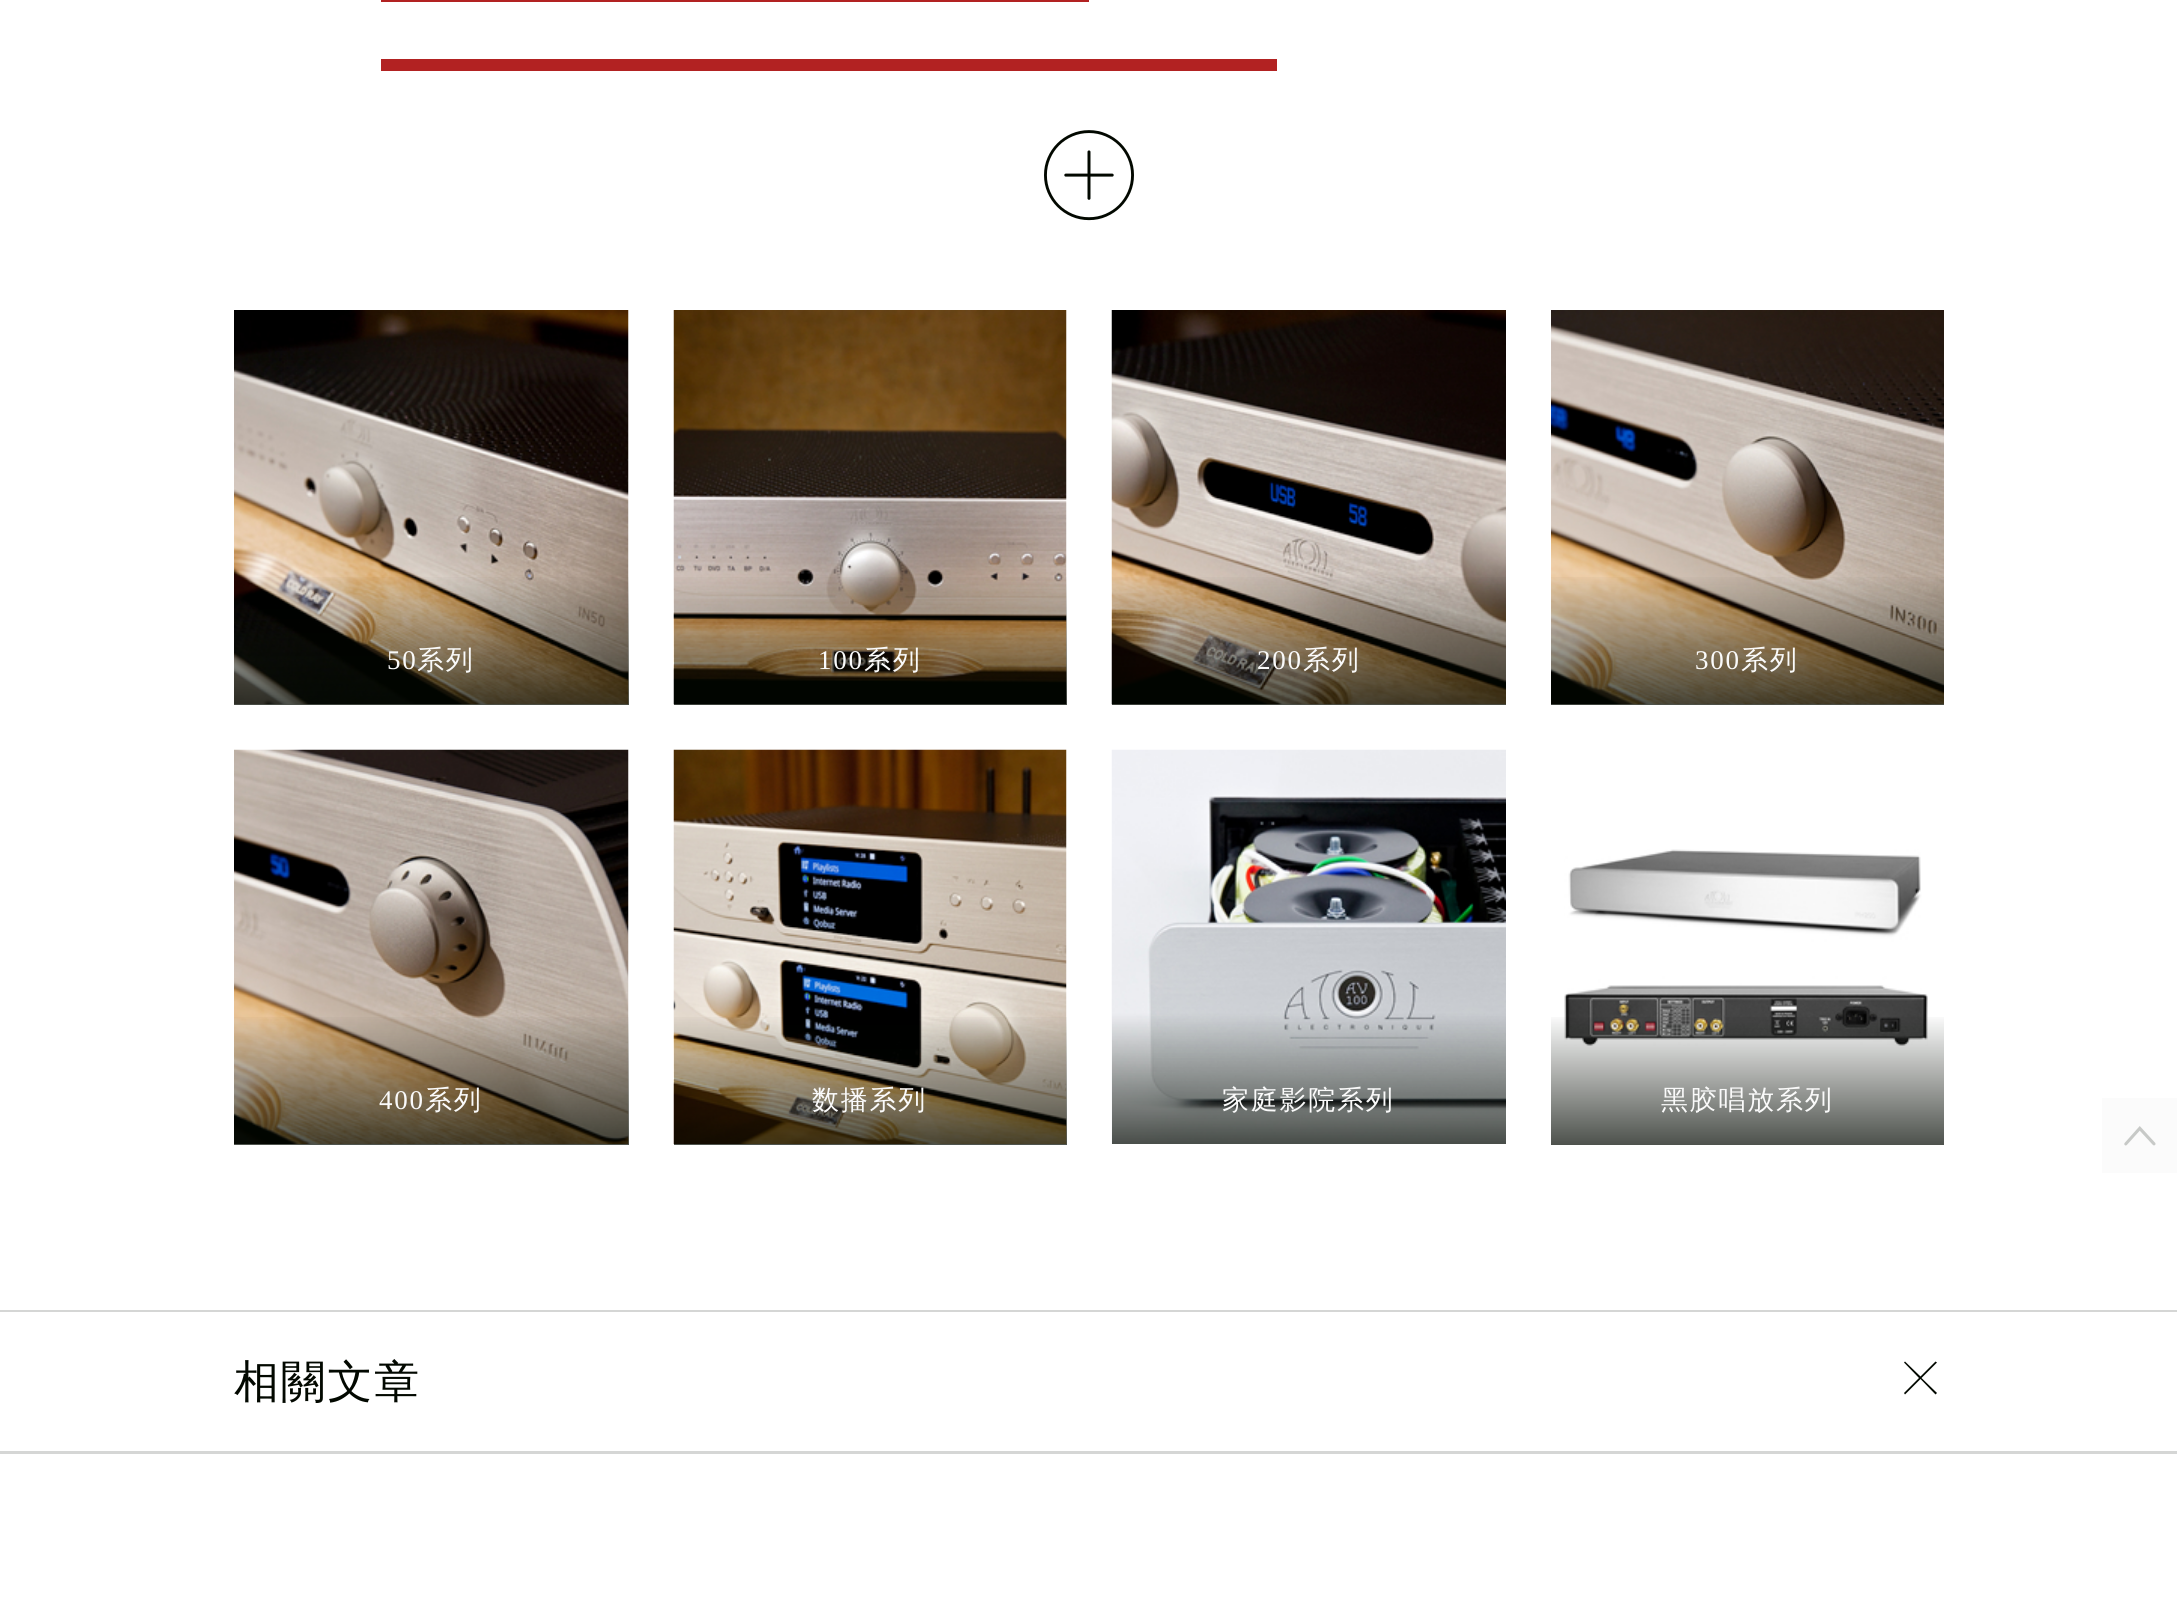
import math
import cairocffi as cairo

surface = cairo.ImageSurface(cairo.FORMAT_RGB24, 2177, 1617)
cr = cairo.Context(surface)
options = cairo.FontOptions()
options.set_hint_metrics(cairo.HINT_METRICS_OFF)
options.set_hint_style(cairo.HINT_STYLE_NONE)
cr.set_font_options(options)
cr.set_miter_limit(4)


def use_color(code):
    cr.set_source_rgb(*(v / 255 for v in bytes.fromhex(code[-6:])))


def spaced_text(x, y, s, letter, word):
    cr.move_to(x, y)
    for ch in s:
        cr.show_text(ch)
        cr.rel_move_to(letter + word * (ch == ' '), 0)


def picture(path, x, y, w, h):
    cr.save()
    cr.set_source_surface(cairo.ImageSurface.create_from_png(path), x, y)
    cr.rectangle(x, y, w, h)
    cr.fill()
    cr.restore()


use_color("#ffffff")
cr.paint()
use_color("#b22222")
cr.rectangle(381, 0, 708, 2)
cr.fill()
cr.rectangle(381, 59, 896, 12)
cr.fill()
picture("img1.png", 1044, 130, 90, 91)
picture("img2.png", 234, 310, 395, 395)
gradient = cairo.LinearGradient(431, 573, 431, 705)
gradient.add_color_stop_rgba(0, 0.008, 0.031, 0, 0)
gradient.add_color_stop_rgba(1, 0.008, 0.031, 0, 0.7)
cr.set_source(gradient)
cr.rectangle(234, 577, 395, 128)
cr.fill()
cr.select_font_face("Liberation Serif")
cr.set_font_size(27)
use_color("#fafafa")
spaced_text(387, 669, "50", 1.75, 0)
cr.select_font_face("WenQuanYi Zen Hei Medium")
spaced_text(417, 669, "系列", 1.75, 0)
picture("img3.png", 673, 310, 394, 395)
gradient = cairo.LinearGradient(870, 573, 870, 705)
gradient.add_color_stop_rgba(0, 0.008, 0.031, 0, 0)
gradient.add_color_stop_rgba(1, 0.008, 0.031, 0, 0.7)
cr.set_source(gradient)
cr.rectangle(674, 577, 393, 128)
cr.fill()
cr.select_font_face("Liberation Serif")
use_color("#fafafa")
spaced_text(818, 669, "100", 1.75, 0)
cr.select_font_face("WenQuanYi Zen Hei Medium")
spaced_text(864, 669, "系列", 1.75, 0)
picture("img4.png", 1111, 310, 395, 395)
gradient = cairo.LinearGradient(1309, 573, 1309, 705)
gradient.add_color_stop_rgba(0, 0.008, 0.031, 0, 0)
gradient.add_color_stop_rgba(1, 0.008, 0.031, 0, 0.7)
cr.set_source(gradient)
cr.rectangle(1112, 577, 394, 128)
cr.fill()
cr.select_font_face("Liberation Serif")
use_color("#fafafa")
spaced_text(1257, 669, "200", 1.75, 0)
cr.select_font_face("WenQuanYi Zen Hei Medium")
spaced_text(1303, 669, "系列", 1.75, 0)
picture("img5.png", 1551, 310, 393, 395)
gradient = cairo.LinearGradient(1748, 573, 1748, 705)
gradient.add_color_stop_rgba(0, 0.008, 0.031, 0, 0)
gradient.add_color_stop_rgba(1, 0.008, 0.031, 0, 0.7)
cr.set_source(gradient)
cr.rectangle(1551, 577, 393, 128)
cr.fill()
cr.select_font_face("Liberation Serif")
use_color("#fafafa")
spaced_text(1695, 669, "300", 1.75, 0)
cr.select_font_face("WenQuanYi Zen Hei Medium")
spaced_text(1741, 669, "系列", 1.75, 0)
picture("img6.png", 234, 749, 395, 395)
gradient = cairo.LinearGradient(431, 1013, 431, 1145)
gradient.add_color_stop_rgba(0, 0.008, 0.031, 0, 0)
gradient.add_color_stop_rgba(1, 0.008, 0.031, 0, 0.7)
cr.set_source(gradient)
cr.rectangle(234, 1017, 395, 128)
cr.fill()
cr.select_font_face("Liberation Serif")
use_color("#fafafa")
spaced_text(379, 1109, "400", 1.75, 0)
cr.select_font_face("WenQuanYi Zen Hei Medium")
spaced_text(425, 1109, "系列", 1.75, 0)
picture("img7.png", 673, 749, 394, 395)
gradient = cairo.LinearGradient(870, 1013, 870, 1145)
gradient.add_color_stop_rgba(0, 0.008, 0.031, 0, 0)
gradient.add_color_stop_rgba(1, 0.008, 0.031, 0, 0.7)
cr.set_source(gradient)
cr.rectangle(674, 1017, 393, 128)
cr.fill()
use_color("#fafafa")
spaced_text(812, 1109, "数播系列", 1.75, 0)
picture("img8.png", 1111, 749, 395, 395)
spaced_text(1222, 1109, "家庭影院系列", 1.75, 0)
picture("img9.png", 1564, 849, 364, 197)
gradient = cairo.LinearGradient(1748, 1013, 1748, 1145)
gradient.add_color_stop_rgba(0, 0.008, 0.031, 0, 0)
gradient.add_color_stop_rgba(1, 0.008, 0.031, 0, 0.7)
cr.set_source(gradient)
cr.rectangle(1551, 1017, 393, 128)
cr.fill()
use_color("#fafafa")
spaced_text(1661, 1109, "黑胶唱放系列", 1.75, 0)
use_color("#d5d6d5")
cr.rectangle(0, 1451, 2177, 3)
cr.fill()
cr.rectangle(0, 1310, 2177, 2)
cr.fill()
cr.set_font_size(45)
use_color("#020800")
spaced_text(234, 1397, "相關文章", 1.75, 0)
cr.new_path()
cr.move_to(1921.5, 1378)
cr.line_to(1937, 1362.5)
cr.line_to(1935.5, 1361.5)
cr.line_to(1920.5, 1376.5)
cr.line_to(1905, 1361.5)
cr.line_to(1904, 1362.5)
cr.line_to(1919, 1378)
cr.line_to(1904, 1393)
cr.line_to(1905, 1394.5)
cr.line_to(1920.5, 1379)
cr.line_to(1935.5, 1394.5)
cr.line_to(1937, 1393)
cr.close_path()
cr.fill()
use_color("#fbfbfb")
cr.rectangle(2102, 1098, 75, 75)
cr.fill()
picture("img10.png", 2124, 1126, 32, 20)
surface.write_to_png("result.png")
